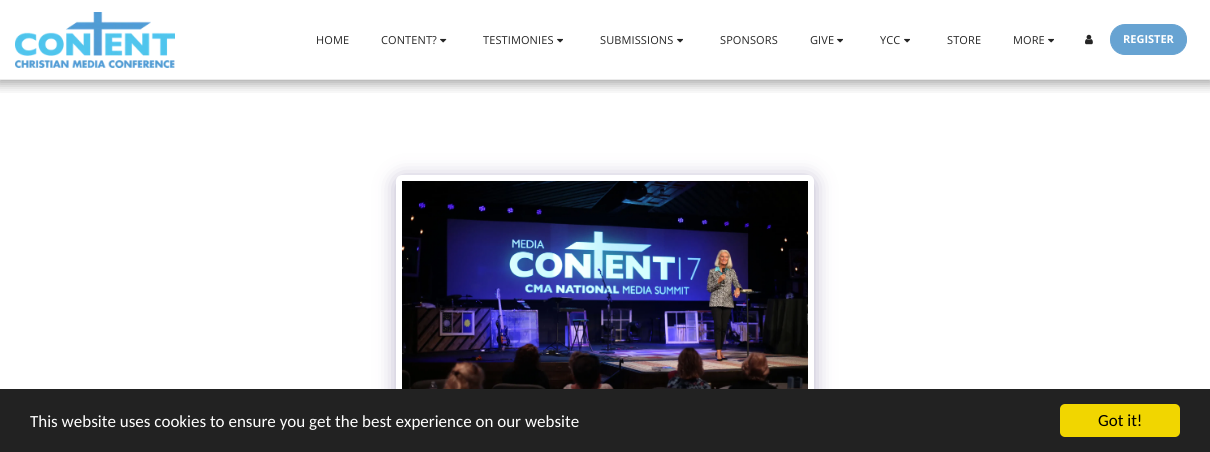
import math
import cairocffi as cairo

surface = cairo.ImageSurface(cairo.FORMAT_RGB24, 1210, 452)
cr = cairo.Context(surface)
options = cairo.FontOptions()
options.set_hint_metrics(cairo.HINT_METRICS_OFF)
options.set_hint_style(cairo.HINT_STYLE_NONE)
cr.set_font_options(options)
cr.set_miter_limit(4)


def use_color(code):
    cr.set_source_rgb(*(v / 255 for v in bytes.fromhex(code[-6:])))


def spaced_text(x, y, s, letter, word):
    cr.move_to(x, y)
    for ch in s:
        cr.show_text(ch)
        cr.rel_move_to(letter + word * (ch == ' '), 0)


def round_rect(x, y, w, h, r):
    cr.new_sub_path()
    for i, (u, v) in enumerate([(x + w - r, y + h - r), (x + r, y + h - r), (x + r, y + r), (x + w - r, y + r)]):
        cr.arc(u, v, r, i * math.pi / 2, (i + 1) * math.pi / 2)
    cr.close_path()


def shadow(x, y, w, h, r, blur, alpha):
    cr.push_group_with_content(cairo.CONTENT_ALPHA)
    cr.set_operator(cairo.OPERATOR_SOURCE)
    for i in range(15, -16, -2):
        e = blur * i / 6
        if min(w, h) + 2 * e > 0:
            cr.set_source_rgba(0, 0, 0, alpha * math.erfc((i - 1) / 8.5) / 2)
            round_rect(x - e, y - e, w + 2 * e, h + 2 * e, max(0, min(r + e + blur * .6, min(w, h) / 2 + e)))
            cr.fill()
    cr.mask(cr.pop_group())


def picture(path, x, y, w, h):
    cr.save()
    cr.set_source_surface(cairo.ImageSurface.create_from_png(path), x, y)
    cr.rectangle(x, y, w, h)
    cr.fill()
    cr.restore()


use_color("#ffffff")
cr.paint()
cr.save()
cr.rectangle(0, 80, 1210, 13)
cr.clip()
use_color("#000000")
shadow(-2, 0, 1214, 84, 0, 6, 0.35)
cr.restore()
use_color("#ebebeb")
cr.rectangle(0, 79, 1210, 1)
cr.fill()
picture("img1.png", 15, 12, 160, 56)
cr.select_font_face("Open Sans")
cr.set_font_size(11)
use_color("#252525")
spaced_text(316, 44, "HOME", 0.1, 0)
spaced_text(381, 44, "CONTENT?", 0.1, 0)
picture("img2.png", 440, 38, 7, 5)
spaced_text(483, 44, "TESTIMONIES", 0.1, 0)
picture("img3.png", 557, 38, 6, 5)
spaced_text(600, 44, "SUBMISSIONS", 0.1, 0)
picture("img3.png", 677, 38, 6, 5)
spaced_text(720, 44, "SPONSORS", 0.1, 0)
spaced_text(810, 44, "GIVE", 0.1, 0)
picture("img3.png", 837, 38, 6, 5)
spaced_text(880, 44, "YCC", 0.1, 0)
picture("img3.png", 904, 38, 6, 5)
spaced_text(947, 44, "STORE", 0.1, 0)
spaced_text(1013, 44, "MORE", 0.1, 0)
picture("img3.png", 1048, 38, 6, 5)
picture("img4.png", 1085, 34, 8, 11)
use_color("#67a3d2")
round_rect(1110.5, 24.5, 76, 30, 14.5)
cr.fill_preserve()
cr.set_line_width(1)
cr.stroke()
cr.select_font_face("Open Sans", cairo.FONT_SLANT_NORMAL, cairo.FONT_WEIGHT_BOLD)
use_color("#ffffff")
cr.move_to(1123, 43)
cr.show_text("REGISTER")
use_color("#4d3f7a")
shadow(396, 178, 418, 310, 6, 10, 0.4)
use_color("#ffffff")
round_rect(396, 175, 418, 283, 6)
cr.fill()
picture("img5.png", 402, 181, 406, 208)
use_color("#222222")
cr.rectangle(0, 389, 1210, 63)
cr.fill()
cr.select_font_face("Carlito")
cr.set_font_size(17)
use_color("#ffffff")
cr.move_to(30, 427)
cr.show_text("This website uses cookies to ensure you get the best experience on our website")
use_color("#f1d600")
round_rect(1060, 404, 120, 33, 5)
cr.fill()
use_color("#000000")
cr.move_to(1098, 426)
cr.show_text("Got it!")
surface.write_to_png("result.png")
